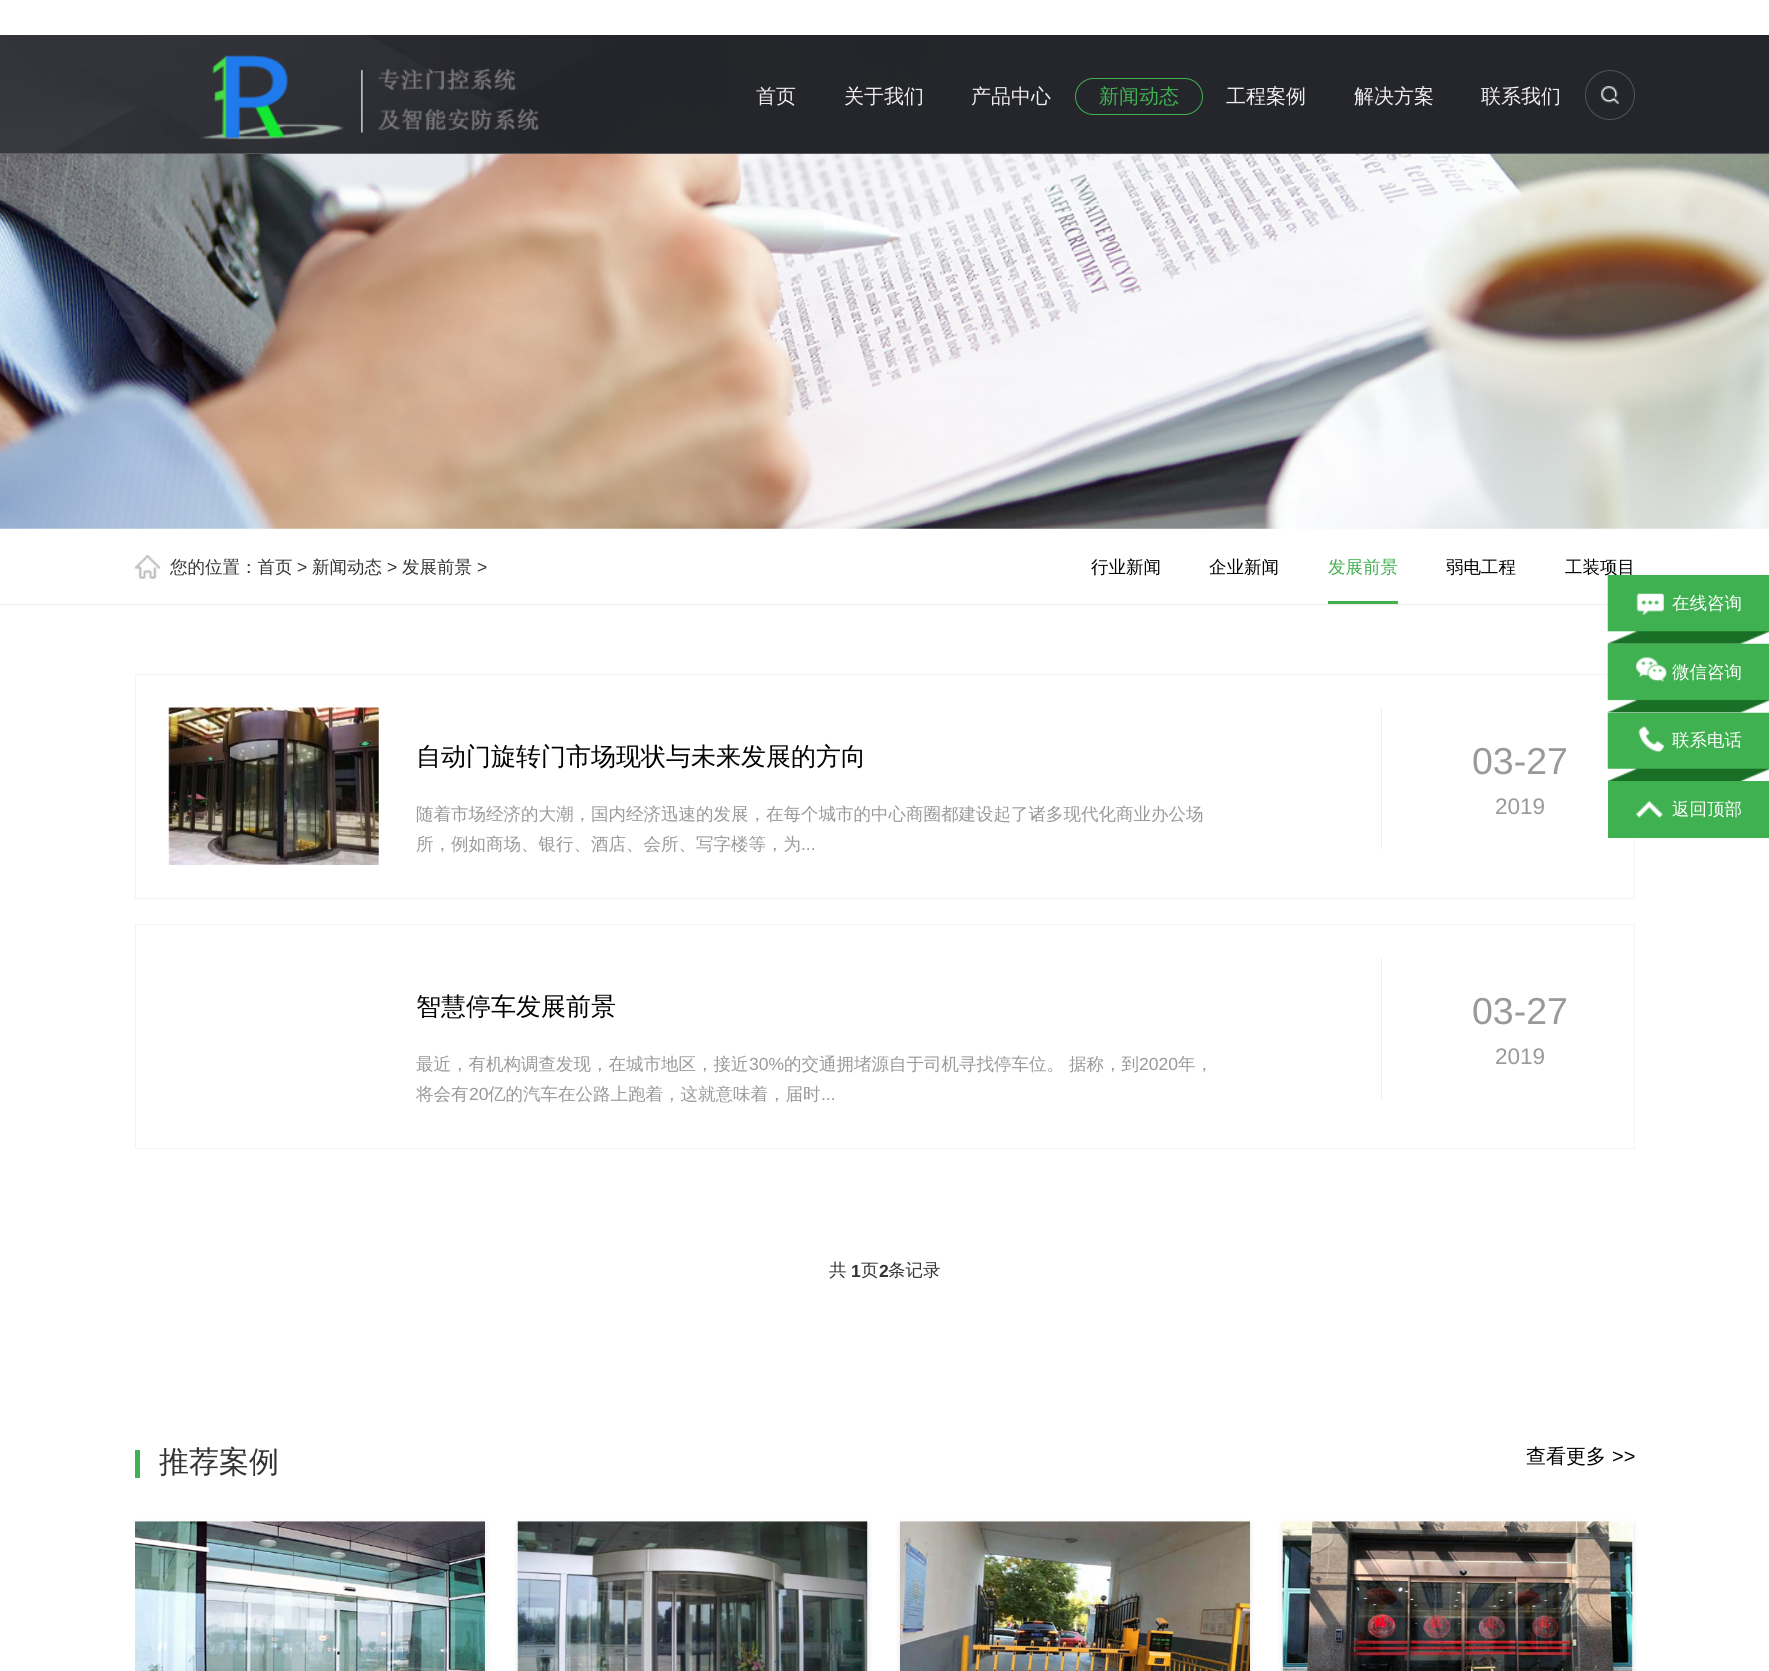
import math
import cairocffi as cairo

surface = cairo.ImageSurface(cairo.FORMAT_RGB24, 1769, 1671)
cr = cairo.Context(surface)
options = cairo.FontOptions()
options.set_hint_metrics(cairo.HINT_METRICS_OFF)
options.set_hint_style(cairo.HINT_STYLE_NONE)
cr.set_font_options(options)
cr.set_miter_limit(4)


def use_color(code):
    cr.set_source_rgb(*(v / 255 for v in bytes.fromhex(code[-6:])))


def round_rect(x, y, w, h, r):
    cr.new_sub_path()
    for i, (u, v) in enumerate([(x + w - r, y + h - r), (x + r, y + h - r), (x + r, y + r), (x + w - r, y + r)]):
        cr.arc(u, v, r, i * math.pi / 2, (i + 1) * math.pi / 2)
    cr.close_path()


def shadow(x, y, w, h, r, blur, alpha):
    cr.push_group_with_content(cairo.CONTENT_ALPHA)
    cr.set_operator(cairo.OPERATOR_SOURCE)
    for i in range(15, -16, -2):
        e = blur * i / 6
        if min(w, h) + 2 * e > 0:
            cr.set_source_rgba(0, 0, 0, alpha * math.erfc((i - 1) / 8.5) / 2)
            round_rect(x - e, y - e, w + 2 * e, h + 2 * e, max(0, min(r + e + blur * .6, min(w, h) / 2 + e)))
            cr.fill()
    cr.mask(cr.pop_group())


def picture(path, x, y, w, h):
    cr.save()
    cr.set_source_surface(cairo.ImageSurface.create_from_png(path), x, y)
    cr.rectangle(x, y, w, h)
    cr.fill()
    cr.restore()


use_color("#ffffff")
cr.paint()
picture("img4.png", 0, 153, 1769, 376)
picture("img1.png", 0, 35, 1769, 119)
picture("img2.png", 200, 55, 339, 85)
cr.select_font_face("WenQuanYi Zen Hei Medium")
cr.set_font_size(20)
use_color("#eeeeee")
cr.move_to(756, 103)
cr.show_text("首页")
cr.move_to(844, 103)
cr.show_text("关于我们")
cr.move_to(971, 103)
cr.show_text("产品中心")
round_rect(1075.5, 78.5, 127, 36, 18)
use_color("#3fb150")
cr.set_line_width(1)
cr.stroke()
cr.move_to(1099, 103)
cr.show_text("新闻动态")
use_color("#eeeeee")
cr.move_to(1226, 103)
cr.show_text("工程案例")
cr.move_to(1354, 103)
cr.show_text("解决方案")
cr.move_to(1481, 103)
cr.show_text("联系我们")
picture("img3.png", 1601, 86, 18, 18)
cr.arc(1610, 95, 24.5, 0, 2 * math.pi)
use_color("#52545b")
cr.stroke()
use_color("#eeeeee")
cr.rectangle(0, 604, 1608, 1)
cr.fill()
picture("img5.png", 135, 555, 26, 24)
cr.set_font_size(17.5)
use_color("#333333")
cr.move_to(170, 573)
cr.show_text("您的位置：首页")
cr.select_font_face("Liberation Sans")
cr.move_to(297, 573)
cr.show_text(">")
cr.select_font_face("WenQuanYi Zen Hei Medium")
cr.move_to(312, 573)
cr.show_text("新闻动态")
cr.select_font_face("Liberation Sans")
cr.move_to(387, 573)
cr.show_text(">")
cr.select_font_face("WenQuanYi Zen Hei Medium")
cr.move_to(402, 573)
cr.show_text("发展前景")
cr.select_font_face("Liberation Sans")
cr.move_to(477, 573)
cr.show_text(">")
cr.select_font_face("WenQuanYi Zen Hei Medium")
use_color("#000000")
cr.move_to(1091, 573)
cr.show_text("行业新闻")
cr.move_to(1209, 573)
cr.show_text("企业新闻")
use_color("#3fb150")
cr.move_to(1328, 573)
cr.show_text("发展前景")
cr.rectangle(1328, 601, 70, 3)
cr.fill()
use_color("#000000")
cr.move_to(1446, 573)
cr.show_text("弱电工程")
cr.move_to(1565, 573)
cr.show_text("工装项目")
picture("img6.png", 1607, 575, 162, 69)
picture("img7.png", 1636, 593, 28, 23)
use_color("#ffffff")
cr.move_to(1672, 609)
cr.show_text("在线咨询")
cr.rectangle(135.5, 674.5, 1499, 224)
use_color("#f3f3f3")
cr.stroke()
picture("img8.png", 1607, 643, 162, 70)
picture("img9.png", 1636, 657, 31, 25)
use_color("#ffffff")
cr.move_to(1672, 678)
cr.show_text("微信咨询")
picture("img10.png", 1607, 712, 162, 69)
picture("img11.png", 1638, 726, 27, 27)
cr.move_to(1672, 746)
cr.show_text("联系电话")
use_color("#3fb150")
cr.rectangle(1608, 781, 161, 57)
cr.fill()
picture("img12.png", 1636, 801, 27, 17)
use_color("#ffffff")
cr.move_to(1672, 815)
cr.show_text("返回顶部")
picture("img13.png", 168, 707, 211, 158)
cr.set_font_size(25)
use_color("#000000")
cr.move_to(416, 765)
cr.show_text("自动门旋转门市场现状与未来发展的方向")
use_color("#eeeeee")
cr.rectangle(1381, 708, 1, 141)
cr.fill()
cr.select_font_face("Liberation Sans")
cr.set_font_size(37.5)
use_color("#999999")
cr.move_to(1472, 774)
cr.show_text("03-27")
cr.set_font_size(22.5)
cr.move_to(1495, 814)
cr.show_text("2019")
cr.select_font_face("WenQuanYi Zen Hei Medium")
cr.set_font_size(17.5)
cr.move_to(416, 820)
cr.show_text("随着市场经济的大潮，国内经济迅速的发展，在每个城市的中心商圈都建设起了诸多现代化商业办公场")
cr.move_to(416, 850)
cr.show_text("所，例如商场、银行、酒店、会所、写字楼等，为")
cr.select_font_face("Liberation Sans")
cr.move_to(801, 850)
cr.show_text("...")
cr.rectangle(135.5, 924.5, 1499, 224)
use_color("#f3f3f3")
cr.stroke()
cr.select_font_face("WenQuanYi Zen Hei Medium")
cr.set_font_size(25)
use_color("#000000")
cr.move_to(416, 1015)
cr.show_text("智慧停车发展前景")
use_color("#eeeeee")
cr.rectangle(1381, 958, 1, 141)
cr.fill()
cr.select_font_face("Liberation Sans")
cr.set_font_size(37.5)
use_color("#999999")
cr.move_to(1472, 1024)
cr.show_text("03-27")
cr.set_font_size(22.5)
cr.move_to(1495, 1064)
cr.show_text("2019")
cr.select_font_face("WenQuanYi Zen Hei Medium")
cr.set_font_size(17.5)
cr.move_to(416, 1070)
cr.show_text("最近，有机构调查发现，在城市地区，接近")
cr.select_font_face("Liberation Sans")
cr.move_to(749, 1070)
cr.show_text("30%")
cr.select_font_face("WenQuanYi Zen Hei Medium")
cr.move_to(784, 1070)
cr.show_text("的交通拥堵源自于司机寻找停车位。")
cr.move_to(1069, 1070)
cr.show_text("据称，到")
cr.select_font_face("Liberation Sans")
cr.move_to(1139, 1070)
cr.show_text("2020")
cr.select_font_face("WenQuanYi Zen Hei Medium")
cr.move_to(1178, 1070)
cr.show_text("年，")
cr.move_to(416, 1100)
cr.show_text("将会有")
cr.select_font_face("Liberation Sans")
cr.move_to(469, 1100)
cr.show_text("20")
cr.select_font_face("WenQuanYi Zen Hei Medium")
cr.move_to(488, 1100)
cr.show_text("亿的汽车在公路上跑着，这就意味着，届时")
cr.select_font_face("Liberation Sans")
cr.move_to(821, 1100)
cr.show_text("...")
cr.select_font_face("WenQuanYi Zen Hei Medium")
use_color("#333333")
cr.move_to(829, 1276)
cr.show_text("共")
cr.select_font_face("Liberation Sans", cairo.FONT_SLANT_NORMAL, cairo.FONT_WEIGHT_BOLD)
cr.move_to(851, 1277)
cr.show_text("1")
cr.select_font_face("WenQuanYi Zen Hei Medium")
cr.move_to(861, 1276)
cr.show_text("页")
cr.select_font_face("Liberation Sans", cairo.FONT_SLANT_NORMAL, cairo.FONT_WEIGHT_BOLD)
cr.move_to(879, 1277)
cr.show_text("2")
cr.select_font_face("WenQuanYi Zen Hei Medium")
cr.move_to(888, 1276)
cr.show_text("条记录")
use_color("#3fb150")
cr.rectangle(135, 1450, 5, 28)
cr.fill()
cr.set_font_size(30)
use_color("#333333")
cr.move_to(159, 1472)
cr.show_text("推荐案例")
cr.set_font_size(20)
use_color("#000000")
cr.move_to(1526, 1463)
cr.show_text("查看更多")
cr.select_font_face("Liberation Sans")
cr.move_to(1612, 1463)
cr.show_text(">>")
cr.save()
cr.rectangle(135, 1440, 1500, 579)
cr.clip()
use_color("#000000")
shadow(135, 1524, 350, 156, 0, 3, 0.1)
cr.restore()
picture("img14.png", 135, 1521, 350, 150)
use_color("#000000")
shadow(518, 1524, 350, 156, 0, 3, 0.1)
use_color("#ffffff")
cr.rectangle(518, 1521, 350, 150)
cr.fill()
picture("img15.png", 517, 1521, 351, 150)
use_color("#000000")
shadow(900, 1524, 350, 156, 0, 3, 0.1)
picture("img16.png", 900, 1521, 350, 150)
shadow(1283, 1524, 350, 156, 0, 3, 0.1)
use_color("#ffffff")
cr.rectangle(1283, 1521, 350, 150)
cr.fill()
picture("img17.png", 1282, 1521, 351, 150)
surface.write_to_png("result.png")
